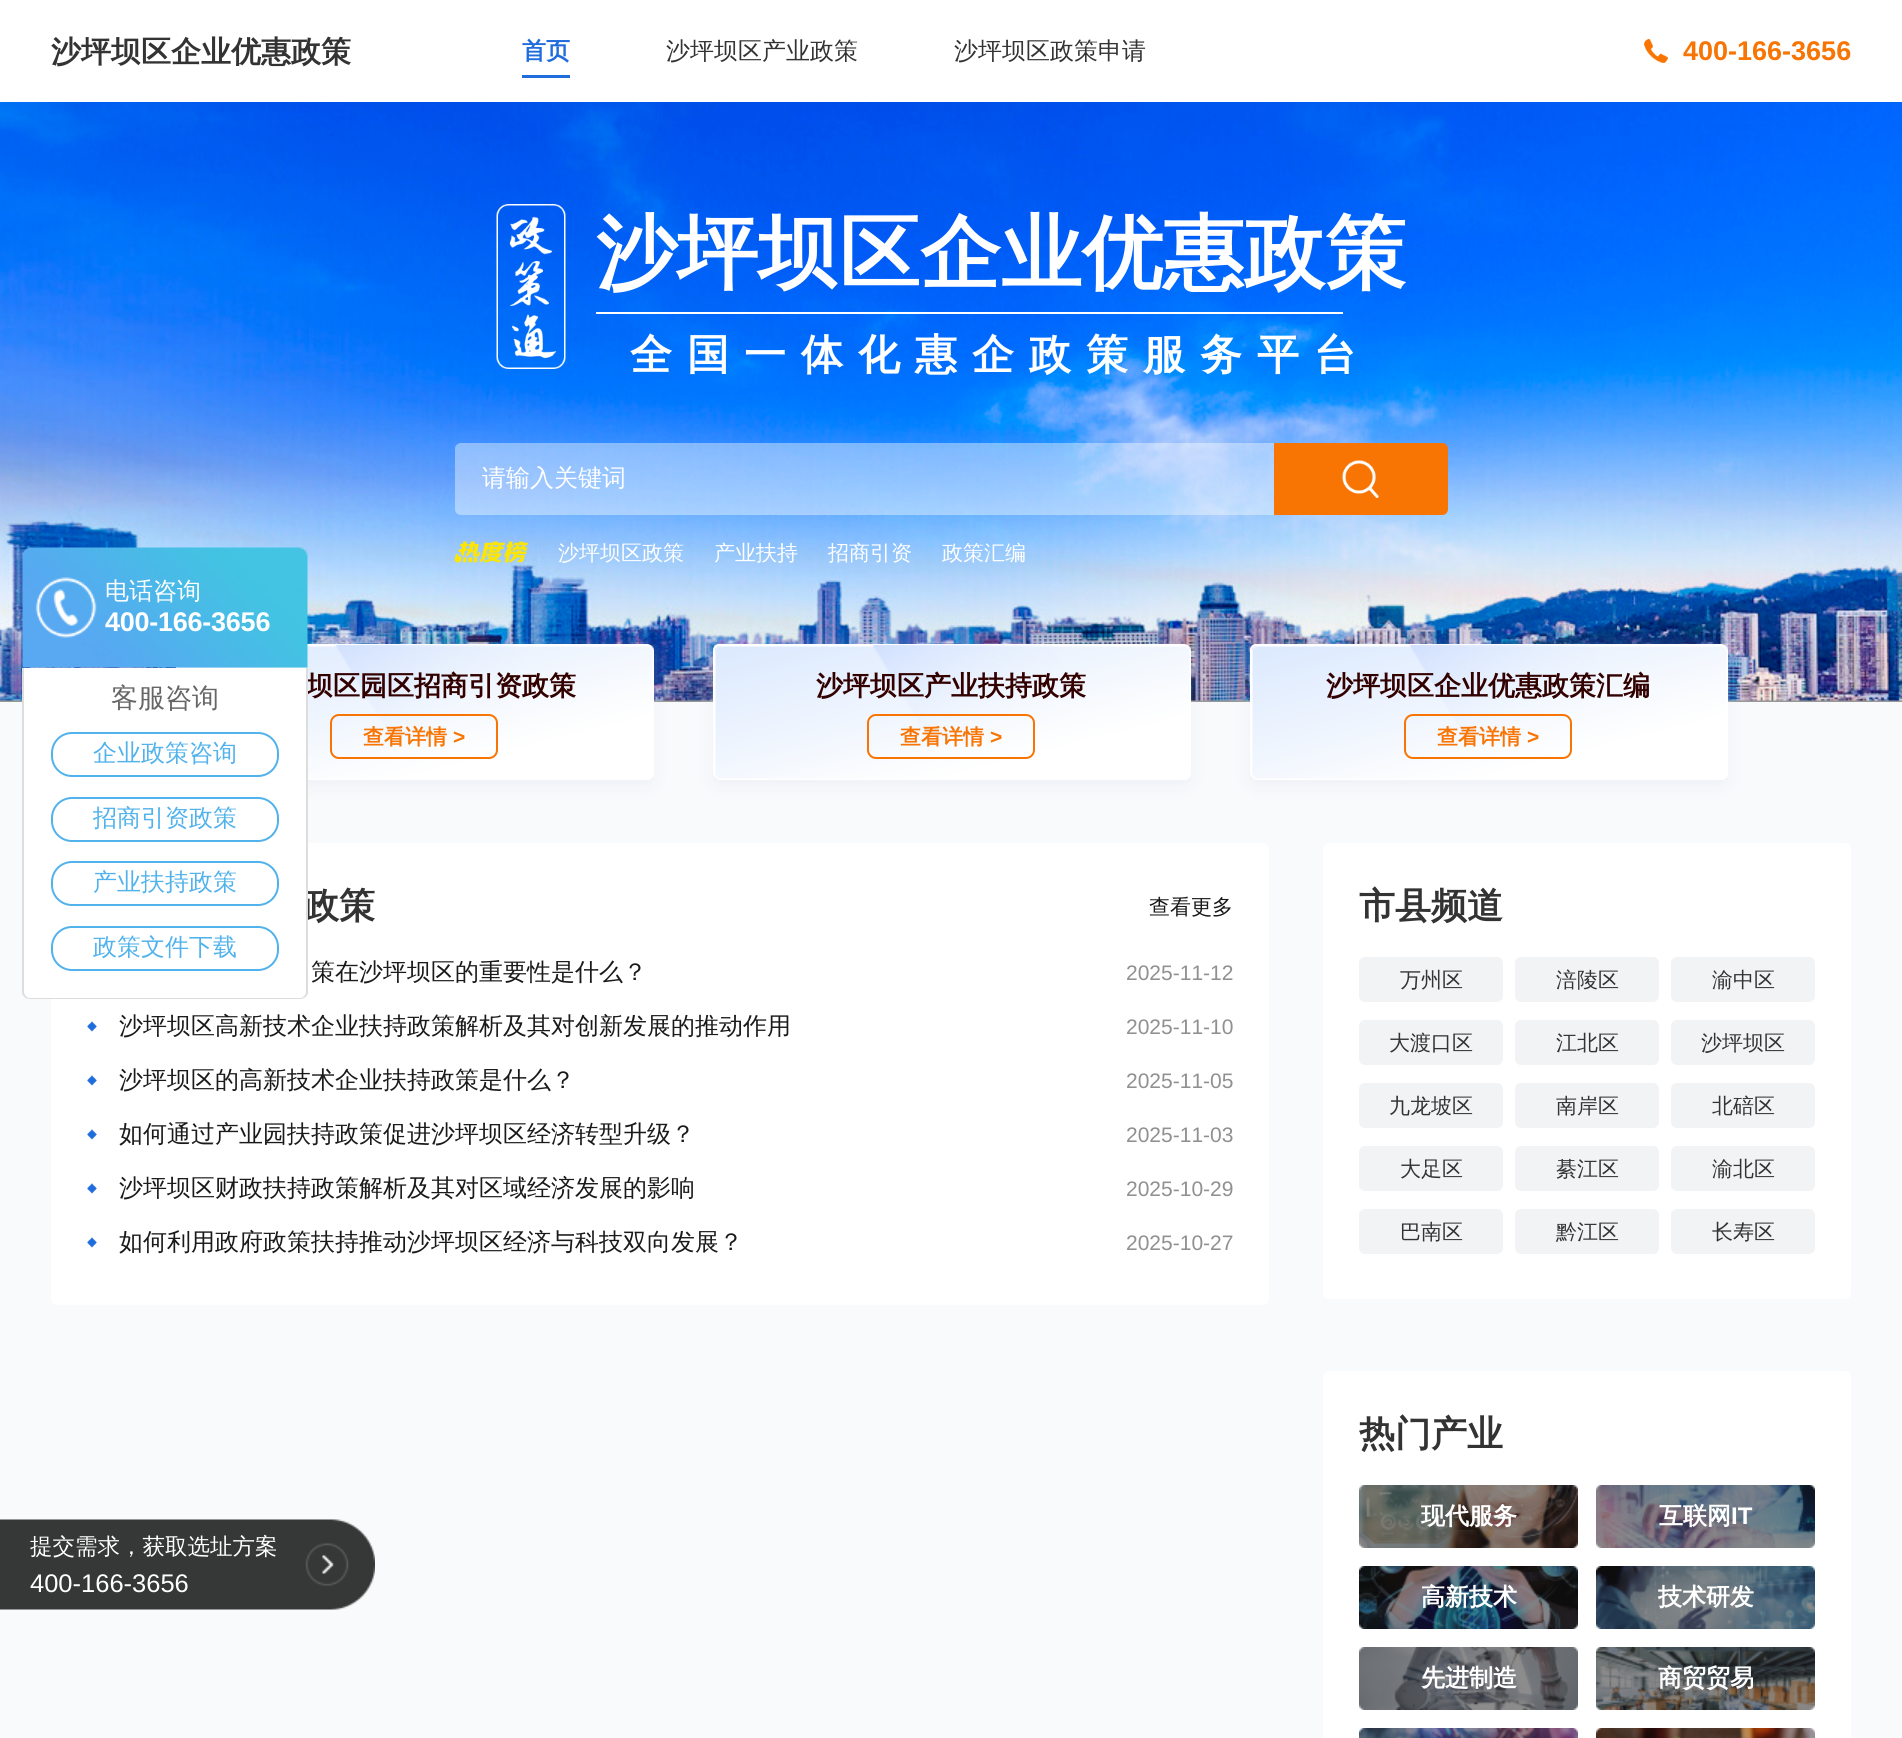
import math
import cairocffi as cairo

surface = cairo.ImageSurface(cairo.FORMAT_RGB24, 1902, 1738)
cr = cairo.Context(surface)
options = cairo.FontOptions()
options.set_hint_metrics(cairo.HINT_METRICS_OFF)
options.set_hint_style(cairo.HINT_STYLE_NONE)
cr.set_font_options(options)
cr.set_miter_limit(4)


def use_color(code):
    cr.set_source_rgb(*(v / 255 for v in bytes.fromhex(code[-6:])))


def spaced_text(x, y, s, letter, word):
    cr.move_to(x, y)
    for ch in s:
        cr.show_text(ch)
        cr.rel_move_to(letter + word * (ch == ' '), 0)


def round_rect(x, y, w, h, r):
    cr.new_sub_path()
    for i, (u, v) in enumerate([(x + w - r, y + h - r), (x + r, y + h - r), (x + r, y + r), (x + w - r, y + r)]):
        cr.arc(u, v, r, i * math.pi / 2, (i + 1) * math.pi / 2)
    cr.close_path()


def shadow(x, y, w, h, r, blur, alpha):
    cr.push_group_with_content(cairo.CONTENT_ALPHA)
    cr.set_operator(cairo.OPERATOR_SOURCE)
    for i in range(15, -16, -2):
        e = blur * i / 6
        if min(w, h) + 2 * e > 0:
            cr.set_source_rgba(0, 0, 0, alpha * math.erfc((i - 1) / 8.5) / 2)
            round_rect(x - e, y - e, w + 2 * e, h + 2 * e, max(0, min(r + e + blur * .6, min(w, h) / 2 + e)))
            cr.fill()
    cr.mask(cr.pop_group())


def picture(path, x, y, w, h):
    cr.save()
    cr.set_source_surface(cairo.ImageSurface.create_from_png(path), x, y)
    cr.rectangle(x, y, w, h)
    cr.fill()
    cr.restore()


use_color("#f9fafc")
cr.paint()
use_color("#ffffff")
cr.rectangle(0, 0, 1902, 102)
cr.fill()
cr.select_font_face("WenQuanYi Zen Hei", cairo.FONT_SLANT_NORMAL, cairo.FONT_WEIGHT_BOLD)
cr.set_font_size(30)
use_color("#333333")
cr.move_to(51, 62)
cr.show_text("沙坪坝区企业优惠政策")
use_color("#1f6cdd")
cr.rectangle(522, 75, 48, 3)
cr.fill()
cr.set_font_size(24)
cr.move_to(522, 59)
cr.show_text("首页")
cr.select_font_face("WenQuanYi Zen Hei Medium")
use_color("#333333")
cr.move_to(666, 59)
cr.show_text("沙坪坝区产业政策")
cr.move_to(954, 59)
cr.show_text("沙坪坝区政策申请")
picture("img1.png", 1644, 39, 24, 24)
cr.select_font_face("Liberation Sans", cairo.FONT_SLANT_NORMAL, cairo.FONT_WEIGHT_BOLD)
cr.set_font_size(27)
use_color("#f87403")
cr.move_to(1683, 60)
cr.show_text("400-166-3656")
picture("img3.png", 0, 102, 1902, 600)
use_color("#dae1ea")
shadow(176, 650, 477, 135, 6, 9, 0.4)
round_rect(177, 645, 475, 133, 5)
use_color("#ffffff")
cr.stroke()
picture("img7.png", 177, 645, 477, 135)
picture("img2.png", 22, 547, 286, 121)
cr.select_font_face("WenQuanYi Zen Hei Medium")
cr.set_font_size(24)
cr.move_to(105, 599)
cr.show_text("电话咨询")
cr.select_font_face("Liberation Sans", cairo.FONT_SLANT_NORMAL, cairo.FONT_WEIGHT_BOLD)
cr.set_font_size(27)
spaced_text(105, 631, "400-166-3656", -0.25, 0)
cr.select_font_face("WenQuanYi Zen Hei", cairo.FONT_SLANT_NORMAL, cairo.FONT_WEIGHT_BOLD)
use_color("#330000")
cr.move_to(306, 695)
cr.show_text("坝区园区招商引资政策")
use_color("#ffffff")
round_rect(51, 843, 1218, 462, 6)
cr.fill()
cr.set_font_size(36)
use_color("#333333")
cr.move_to(303, 918)
cr.show_text("政策")
use_color("#ffffff")
cr.new_path()
cr.move_to(23, 668)
cr.line_to(308, 668)
cr.line_to(308, 991)
cr.curve_to(308, 995.5, 304.5, 999, 300, 999)
cr.line_to(31, 999)
cr.curve_to(26.5, 999, 23, 995.5, 23, 991)
cr.close_path()
cr.fill()
use_color("#dddddd")
cr.set_fill_rule(cairo.FILL_RULE_EVEN_ODD)
cr.new_path()
cr.move_to(22, 668)
cr.line_to(308, 668)
cr.line_to(308, 992)
cr.curve_to(308, 996, 304, 999, 300, 999)
cr.line_to(30, 999)
cr.curve_to(26, 999, 22, 996, 22, 992)
cr.close_path()
cr.move_to(24, 668)
cr.line_to(306, 668)
cr.line_to(306, 992)
cr.curve_to(306, 995, 303, 998, 300, 998)
cr.line_to(30, 998)
cr.curve_to(27, 998, 24, 995, 24, 992)
cr.close_path()
cr.fill()
cr.select_font_face("WenQuanYi Zen Hei Medium")
cr.set_font_size(27)
use_color("#666666")
cr.move_to(111, 707)
cr.show_text("客服咨询")
round_rect(52, 733, 226, 43, 20)
use_color("#51b2ec")
cr.stroke()
cr.set_font_size(24)
cr.move_to(93, 761)
cr.show_text("企业政策咨询")
round_rect(52, 798, 226, 43, 20)
cr.stroke()
cr.move_to(93, 826)
cr.show_text("招商引资政策")
round_rect(52, 862, 226, 43, 20)
cr.stroke()
cr.move_to(93, 890)
cr.show_text("产业扶持政策")
round_rect(52, 927, 226, 43, 20)
cr.stroke()
cr.move_to(93, 955)
cr.show_text("政策文件下载")
picture("img4.png", 496, 204, 70, 165)
cr.select_font_face("WenQuanYi Zen Hei", cairo.FONT_SLANT_NORMAL, cairo.FONT_WEIGHT_BOLD)
cr.set_font_size(81)
use_color("#ffffff")
cr.move_to(596, 281)
cr.show_text("沙坪坝区企业优惠政策")
cr.rectangle(596, 312, 747, 2)
cr.fill()
cr.set_font_size(42)
spaced_text(630, 369, "全国一体化惠企政策服务平台", 15, 0)
cr.set_source_rgba(1, 1, 1, 0.4)
cr.new_path()
cr.move_to(461, 443)
cr.line_to(1274, 443)
cr.line_to(1274, 515)
cr.line_to(461, 515)
cr.curve_to(457.5, 515, 455, 512.5, 455, 509)
cr.line_to(455, 449)
cr.curve_to(455, 445.5, 457.5, 443, 461, 443)
cr.close_path()
cr.fill()
cr.select_font_face("WenQuanYi Zen Hei Medium")
cr.set_font_size(24)
use_color("#ffffff")
cr.move_to(482, 486)
cr.show_text("请输入关键词")
use_color("#f87403")
cr.new_path()
cr.move_to(1274, 443)
cr.line_to(1442, 443)
cr.curve_to(1445.5, 443, 1448, 445.5, 1448, 449)
cr.line_to(1448, 509)
cr.curve_to(1448, 512.5, 1445.5, 515, 1442, 515)
cr.line_to(1274, 515)
cr.close_path()
cr.fill()
picture("img5.png", 1342, 460, 37, 38)
picture("img6.png", 454, 541, 74, 22)
cr.set_font_size(21)
use_color("#ffffff")
cr.move_to(558, 560)
cr.show_text("沙坪坝区政策")
cr.move_to(714, 560)
cr.show_text("产业扶持")
cr.move_to(828, 560)
cr.show_text("招商引资")
cr.move_to(942, 560)
cr.show_text("政策汇编")
round_rect(331, 715, 166, 43, 8)
use_color("#f87403")
cr.stroke()
cr.select_font_face("WenQuanYi Zen Hei", cairo.FONT_SLANT_NORMAL, cairo.FONT_WEIGHT_BOLD)
cr.move_to(363, 744)
cr.show_text("查看详情")
cr.select_font_face("Liberation Sans", cairo.FONT_SLANT_NORMAL, cairo.FONT_WEIGHT_BOLD)
cr.move_to(453, 744)
cr.show_text(">")
use_color("#dae1ea")
shadow(713, 650, 477, 135, 6, 9, 0.4)
round_rect(714, 645, 475, 133, 5)
use_color("#ffffff")
cr.stroke()
picture("img8.png", 714, 645, 477, 135)
cr.select_font_face("WenQuanYi Zen Hei", cairo.FONT_SLANT_NORMAL, cairo.FONT_WEIGHT_BOLD)
cr.set_font_size(27)
use_color("#330000")
cr.move_to(816, 695)
cr.show_text("沙坪坝区产业扶持政策")
round_rect(868, 715, 166, 43, 8)
use_color("#f87403")
cr.stroke()
cr.set_font_size(21)
cr.move_to(900, 744)
cr.show_text("查看详情")
cr.select_font_face("Liberation Sans", cairo.FONT_SLANT_NORMAL, cairo.FONT_WEIGHT_BOLD)
cr.move_to(990, 744)
cr.show_text(">")
use_color("#dae1ea")
shadow(1250, 650, 477, 135, 6, 9, 0.4)
round_rect(1251, 645, 475, 133, 5)
use_color("#ffffff")
cr.stroke()
picture("img9.png", 1251, 645, 477, 135)
cr.select_font_face("WenQuanYi Zen Hei", cairo.FONT_SLANT_NORMAL, cairo.FONT_WEIGHT_BOLD)
cr.set_font_size(27)
use_color("#330000")
cr.move_to(1326, 695)
cr.show_text("沙坪坝区企业优惠政策汇编")
round_rect(1405, 715, 166, 43, 8)
use_color("#f87403")
cr.stroke()
cr.set_font_size(21)
cr.move_to(1437, 744)
cr.show_text("查看详情")
cr.select_font_face("Liberation Sans", cairo.FONT_SLANT_NORMAL, cairo.FONT_WEIGHT_BOLD)
cr.move_to(1527, 744)
cr.show_text(">")
cr.select_font_face("WenQuanYi Zen Hei Medium")
use_color("#1a1a1a")
cr.move_to(1149, 914)
cr.show_text("查看更多")
cr.set_font_size(24)
cr.move_to(311, 980)
cr.show_text("策在沙坪坝区的重要性是什么？")
cr.select_font_face("Liberation Sans")
cr.set_font_size(21)
use_color("#909090")
cr.move_to(1126, 980)
cr.show_text("2025-11-12")
picture("img10.png", 87, 1021, 10, 11)
cr.select_font_face("WenQuanYi Zen Hei Medium")
cr.set_font_size(24)
use_color("#1a1a1a")
cr.move_to(119, 1034)
cr.show_text("沙坪坝区高新技术企业扶持政策解析及其对创新发展的推动作用")
cr.select_font_face("Liberation Sans")
cr.set_font_size(21)
use_color("#909090")
cr.move_to(1126, 1034)
cr.show_text("2025-11-10")
picture("img10.png", 87, 1075, 10, 11)
cr.select_font_face("WenQuanYi Zen Hei Medium")
cr.set_font_size(24)
use_color("#1a1a1a")
cr.move_to(119, 1088)
cr.show_text("沙坪坝区的高新技术企业扶持政策是什么？")
cr.select_font_face("Liberation Sans")
cr.set_font_size(21)
use_color("#909090")
cr.move_to(1126, 1088)
cr.show_text("2025-11-05")
picture("img10.png", 87, 1129, 10, 11)
cr.select_font_face("WenQuanYi Zen Hei Medium")
cr.set_font_size(24)
use_color("#1a1a1a")
cr.move_to(119, 1142)
cr.show_text("如何通过产业园扶持政策促进沙坪坝区经济转型升级？")
cr.select_font_face("Liberation Sans")
cr.set_font_size(21)
use_color("#909090")
cr.move_to(1126, 1142)
cr.show_text("2025-11-03")
picture("img10.png", 87, 1183, 10, 11)
cr.select_font_face("WenQuanYi Zen Hei Medium")
cr.set_font_size(24)
use_color("#1a1a1a")
cr.move_to(119, 1196)
cr.show_text("沙坪坝区财政扶持政策解析及其对区域经济发展的影响")
cr.select_font_face("Liberation Sans")
cr.set_font_size(21)
use_color("#909090")
cr.move_to(1126, 1196)
cr.show_text("2025-10-29")
picture("img10.png", 87, 1237, 10, 11)
cr.select_font_face("WenQuanYi Zen Hei Medium")
cr.set_font_size(24)
use_color("#1a1a1a")
cr.move_to(119, 1250)
cr.show_text("如何利用政府政策扶持推动沙坪坝区经济与科技双向发展？")
cr.select_font_face("Liberation Sans")
cr.set_font_size(21)
use_color("#909090")
cr.move_to(1126, 1250)
cr.show_text("2025-10-27")
use_color("#ffffff")
round_rect(1323, 843, 528, 456, 6)
cr.fill()
cr.select_font_face("WenQuanYi Zen Hei", cairo.FONT_SLANT_NORMAL, cairo.FONT_WEIGHT_BOLD)
cr.set_font_size(36)
use_color("#333333")
cr.move_to(1359, 918)
cr.show_text("市县频道")
use_color("#f2f3f5")
round_rect(1359, 957, 144, 45, 6)
cr.fill()
cr.select_font_face("WenQuanYi Zen Hei Medium")
cr.set_font_size(21)
use_color("#333333")
cr.move_to(1400, 987)
cr.show_text("万州区")
use_color("#f2f3f5")
round_rect(1515, 957, 144, 45, 6)
cr.fill()
use_color("#333333")
cr.move_to(1556, 987)
cr.show_text("涪陵区")
use_color("#f2f3f5")
round_rect(1671, 957, 144, 45, 6)
cr.fill()
use_color("#333333")
cr.move_to(1712, 987)
cr.show_text("渝中区")
use_color("#f2f3f5")
round_rect(1359, 1020, 144, 45, 6)
cr.fill()
use_color("#333333")
cr.move_to(1389, 1050)
cr.show_text("大渡口区")
use_color("#f2f3f5")
round_rect(1515, 1020, 144, 45, 6)
cr.fill()
use_color("#333333")
cr.move_to(1556, 1050)
cr.show_text("江北区")
use_color("#f2f3f5")
round_rect(1671, 1020, 144, 45, 6)
cr.fill()
use_color("#333333")
cr.move_to(1701, 1050)
cr.show_text("沙坪坝区")
use_color("#f2f3f5")
round_rect(1359, 1083, 144, 45, 6)
cr.fill()
use_color("#333333")
cr.move_to(1389, 1113)
cr.show_text("九龙坡区")
use_color("#f2f3f5")
round_rect(1515, 1083, 144, 45, 6)
cr.fill()
use_color("#333333")
cr.move_to(1556, 1113)
cr.show_text("南岸区")
use_color("#f2f3f5")
round_rect(1671, 1083, 144, 45, 6)
cr.fill()
use_color("#333333")
cr.move_to(1712, 1113)
cr.show_text("北碚区")
use_color("#f2f3f5")
round_rect(1359, 1146, 144, 45, 6)
cr.fill()
use_color("#333333")
cr.move_to(1400, 1176)
cr.show_text("大足区")
use_color("#f2f3f5")
round_rect(1515, 1146, 144, 45, 6)
cr.fill()
use_color("#333333")
cr.move_to(1556, 1176)
cr.show_text("綦江区")
use_color("#f2f3f5")
round_rect(1671, 1146, 144, 45, 6)
cr.fill()
use_color("#333333")
cr.move_to(1712, 1176)
cr.show_text("渝北区")
use_color("#f2f3f5")
round_rect(1359, 1209, 144, 45, 6)
cr.fill()
use_color("#333333")
cr.move_to(1400, 1239)
cr.show_text("巴南区")
use_color("#f2f3f5")
round_rect(1515, 1209, 144, 45, 6)
cr.fill()
use_color("#333333")
cr.move_to(1556, 1239)
cr.show_text("黔江区")
use_color("#f2f3f5")
round_rect(1671, 1209, 144, 45, 6)
cr.fill()
use_color("#333333")
cr.move_to(1712, 1239)
cr.show_text("长寿区")
use_color("#ffffff")
round_rect(1323, 1371, 528, 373, 6)
cr.fill()
cr.select_font_face("WenQuanYi Zen Hei", cairo.FONT_SLANT_NORMAL, cairo.FONT_WEIGHT_BOLD)
cr.set_font_size(36)
use_color("#333333")
cr.move_to(1359, 1446)
cr.show_text("热门产业")
picture("img11.png", 1359, 1485, 219, 63)
cr.set_font_size(24)
use_color("#ffffff")
cr.move_to(1421, 1524)
cr.show_text("现代服务")
picture("img12.png", 1596, 1485, 219, 63)
cr.move_to(1659, 1524)
cr.show_text("互联网")
cr.select_font_face("Liberation Sans", cairo.FONT_SLANT_NORMAL, cairo.FONT_WEIGHT_BOLD)
cr.move_to(1731, 1524)
cr.show_text("IT")
picture("img13.png", 1359, 1566, 219, 63)
cr.select_font_face("WenQuanYi Zen Hei", cairo.FONT_SLANT_NORMAL, cairo.FONT_WEIGHT_BOLD)
cr.move_to(1421, 1605)
cr.show_text("高新技术")
picture("img14.png", 1596, 1566, 219, 63)
cr.move_to(1658, 1605)
cr.show_text("技术研发")
picture("img15.png", 1359, 1647, 219, 63)
cr.move_to(1421, 1686)
cr.show_text("先进制造")
picture("img16.png", 1596, 1647, 219, 63)
cr.move_to(1658, 1686)
cr.show_text("商贸贸易")
picture("img17.png", 1359, 1728, 219, 10)
picture("img18.png", 1596, 1728, 219, 10)
picture("img19.png", 0, 1519, 375, 91)
cr.select_font_face("WenQuanYi Zen Hei Medium")
cr.set_font_size(22.5)
cr.move_to(30, 1554)
cr.show_text("提交需求，获取选址方案")
cr.select_font_face("Liberation Sans")
cr.set_font_size(25.5)
cr.move_to(30, 1592)
cr.show_text("400-166-3656")
surface.write_to_png("result.png")
